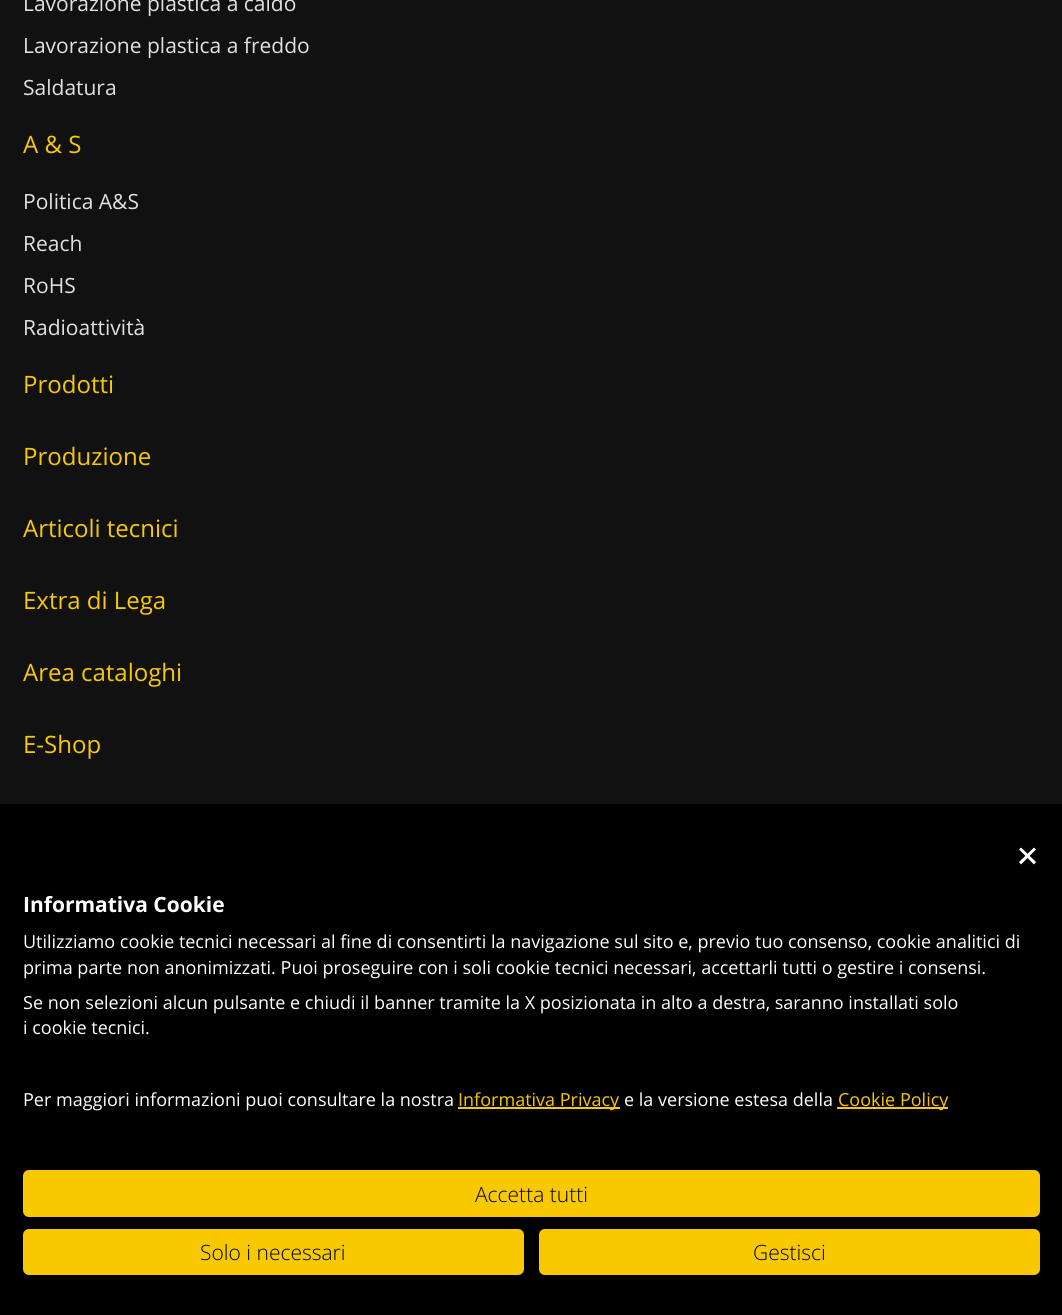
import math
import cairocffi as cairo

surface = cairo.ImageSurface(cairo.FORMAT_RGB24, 1062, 1315)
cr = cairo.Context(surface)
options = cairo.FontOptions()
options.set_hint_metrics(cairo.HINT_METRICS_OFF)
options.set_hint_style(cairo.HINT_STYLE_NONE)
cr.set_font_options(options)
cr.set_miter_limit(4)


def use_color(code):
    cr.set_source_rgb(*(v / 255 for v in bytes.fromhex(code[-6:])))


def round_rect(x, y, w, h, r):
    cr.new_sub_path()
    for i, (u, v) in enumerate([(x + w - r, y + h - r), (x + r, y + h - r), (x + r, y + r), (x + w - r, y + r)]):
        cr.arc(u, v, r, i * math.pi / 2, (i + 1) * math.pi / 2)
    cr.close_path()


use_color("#111111")
cr.paint()
cr.select_font_face("Open Sans")
cr.set_font_size(21)
use_color("#e1e1e1")
cr.move_to(23, 11)
cr.show_text("Lavorazione plastica a caldo")
cr.move_to(23, 53)
cr.show_text("Lavorazione plastica a freddo")
cr.move_to(23, 95)
cr.show_text("Saldatura")
cr.set_font_size(24)
use_color("#f8c900")
cr.move_to(23, 153)
cr.show_text("A & S")
cr.set_font_size(21)
use_color("#e1e1e1")
cr.move_to(23, 209)
cr.show_text("Politica A&S")
cr.move_to(23, 251)
cr.show_text("Reach")
cr.move_to(23, 293)
cr.show_text("RoHS")
cr.move_to(23, 335)
cr.show_text("Radioattività")
cr.set_font_size(24)
use_color("#f8c900")
cr.move_to(23, 393)
cr.show_text("Prodotti")
cr.move_to(23, 465)
cr.show_text("Produzione")
cr.move_to(23, 537)
cr.show_text("Articoli tecnici")
cr.move_to(23, 609)
cr.show_text("Extra di Lega")
cr.move_to(23, 681)
cr.show_text("Area cataloghi")
cr.move_to(23, 753)
cr.show_text("E-Shop")
use_color("#000000")
cr.rectangle(0, 804, 1062, 511)
cr.fill()
use_color("#ffffff")
cr.new_path()
cr.move_to(1034, 847.5)
cr.line_to(1036, 849.5)
cr.line_to(1021, 864.5)
cr.line_to(1019, 862)
cr.close_path()
cr.fill()
cr.new_path()
cr.move_to(1019, 849.5)
cr.line_to(1021, 847.5)
cr.line_to(1036, 862)
cr.line_to(1034, 864.5)
cr.close_path()
cr.fill()
cr.select_font_face("Open Sans", cairo.FONT_SLANT_NORMAL, cairo.FONT_WEIGHT_BOLD)
cr.set_font_size(21)
cr.move_to(23, 912)
cr.show_text("Informativa Cookie")
cr.select_font_face("Open Sans")
cr.set_font_size(18)
cr.move_to(23, 948)
cr.show_text("Utilizziamo cookie tecnici necessari al fine di consentirti la navigazione sul sito e, previo tuo consenso, cookie analitici di")
cr.move_to(23, 974)
cr.show_text("prima parte non anonimizzati. Puoi proseguire con i soli cookie tecnici necessari, accettarli tutti o gestire i consensi.")
cr.move_to(23, 1009)
cr.show_text("Se non selezioni alcun pulsante e chiudi il banner tramite la X posizionata in alto a destra, saranno installati solo")
cr.move_to(23, 1034)
cr.show_text("i cookie tecnici.")
cr.move_to(23, 1106)
cr.show_text("Per maggiori informazioni puoi consultare la nostra")
use_color("#f8c900")
cr.rectangle(458, 1107, 162, 2)
cr.fill()
cr.move_to(458, 1106)
cr.show_text("Informativa Privacy")
use_color("#ffffff")
cr.move_to(624, 1106)
cr.show_text("e la versione estesa della")
use_color("#f8c900")
cr.rectangle(837, 1107, 111, 2)
cr.fill()
cr.move_to(838, 1106)
cr.show_text("Cookie Policy")
round_rect(24, 1171, 1015, 45, 5)
cr.fill_preserve()
cr.stroke()
cr.select_font_face("Open Sans Light")
cr.set_font_size(21)
use_color("#000000")
cr.move_to(475, 1202)
cr.show_text("Accetta tutti")
use_color("#f8c900")
round_rect(24, 1230, 499, 44, 5)
cr.fill_preserve()
cr.stroke()
use_color("#000000")
cr.move_to(200, 1260)
cr.show_text("Solo i necessari")
use_color("#f8c900")
round_rect(540, 1230, 499, 44, 5)
cr.fill_preserve()
cr.stroke()
use_color("#000000")
cr.move_to(753, 1260)
cr.show_text("Gestisci")
surface.write_to_png("result.png")
